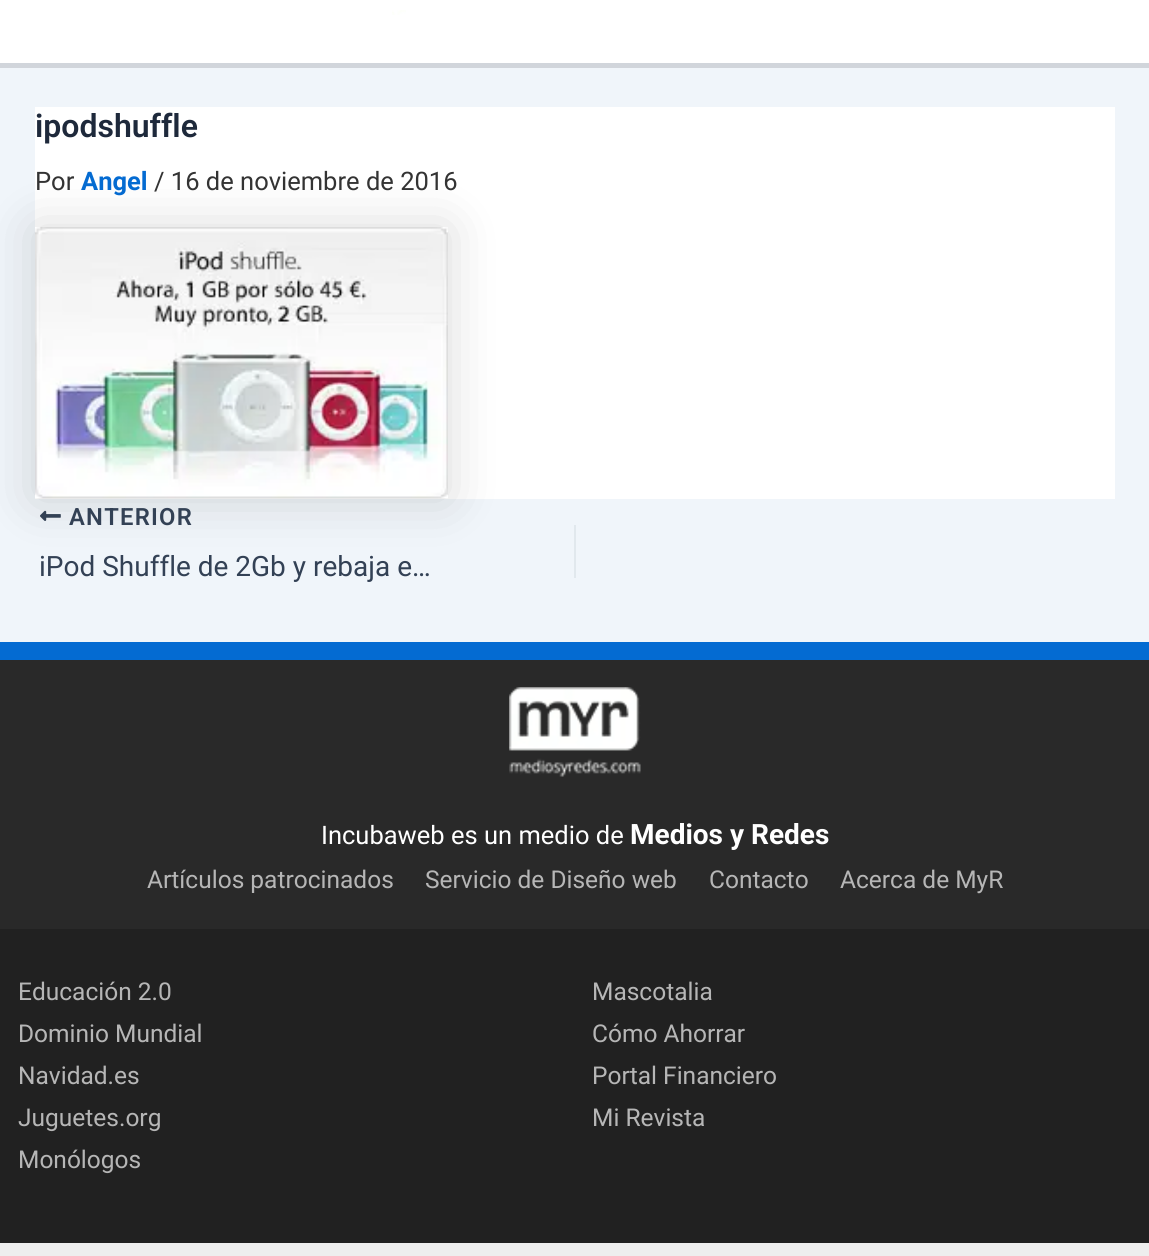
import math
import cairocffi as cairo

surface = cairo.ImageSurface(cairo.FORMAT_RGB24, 1149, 1256)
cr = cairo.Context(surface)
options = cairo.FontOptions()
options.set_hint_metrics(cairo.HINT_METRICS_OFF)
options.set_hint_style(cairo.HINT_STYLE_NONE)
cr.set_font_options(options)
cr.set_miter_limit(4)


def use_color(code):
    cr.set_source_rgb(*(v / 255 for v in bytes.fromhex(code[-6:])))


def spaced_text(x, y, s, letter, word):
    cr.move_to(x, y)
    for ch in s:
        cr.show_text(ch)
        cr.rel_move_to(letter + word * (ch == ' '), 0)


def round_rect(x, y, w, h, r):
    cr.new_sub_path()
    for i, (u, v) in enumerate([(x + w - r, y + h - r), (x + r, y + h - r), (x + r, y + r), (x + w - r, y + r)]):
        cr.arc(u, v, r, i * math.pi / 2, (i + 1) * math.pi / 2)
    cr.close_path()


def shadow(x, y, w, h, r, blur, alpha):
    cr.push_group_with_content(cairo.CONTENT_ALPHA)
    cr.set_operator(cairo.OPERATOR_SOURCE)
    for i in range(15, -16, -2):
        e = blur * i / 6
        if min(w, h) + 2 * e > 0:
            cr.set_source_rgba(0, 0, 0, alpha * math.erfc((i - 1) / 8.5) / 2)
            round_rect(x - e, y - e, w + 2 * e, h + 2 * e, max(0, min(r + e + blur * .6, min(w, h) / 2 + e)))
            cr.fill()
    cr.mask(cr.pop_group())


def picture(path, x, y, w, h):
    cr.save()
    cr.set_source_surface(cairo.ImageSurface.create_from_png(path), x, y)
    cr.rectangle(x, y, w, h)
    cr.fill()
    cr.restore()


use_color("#f0f5fa")
cr.paint()
use_color("#ffffff")
cr.rectangle(0, 0, 1149, 63)
cr.fill()
use_color("#d1d5db")
cr.rectangle(0, 63, 1149, 5)
cr.fill()
picture("img1.png", 392, 10, 14, 5)
use_color("#ffffff")
cr.rectangle(35, 107, 1080, 392)
cr.fill()
cr.select_font_face("Roboto SemiBold")
cr.set_font_size(32)
use_color("#1e293b")
cr.move_to(35, 137)
cr.show_text("ipodshuffle")
cr.select_font_face("Roboto")
cr.set_font_size(25.5)
use_color("#333333")
cr.move_to(35, 190)
cr.show_text("Por")
cr.select_font_face("Roboto", cairo.FONT_SLANT_NORMAL, cairo.FONT_WEIGHT_BOLD)
use_color("#046bd2")
cr.move_to(81, 190)
cr.show_text("Angel")
cr.select_font_face("Roboto")
use_color("#333333")
cr.move_to(154, 190)
cr.show_text("/ 16 de noviembre de 2016")
use_color("#000000")
shadow(35, 228, 413, 271, 0, 26, 0.15)
picture("img2.png", 35, 227, 413, 272)
picture("img3.png", 40, 510, 21, 11)
cr.select_font_face("Roboto SemiBold")
cr.set_font_size(23.75)
use_color("#334155")
spaced_text(69, 525, "ANTERIOR", 1.25, 0)
cr.select_font_face("Roboto")
cr.set_font_size(28)
cr.move_to(39, 576)
cr.show_text("iPod Shuffle de 2Gb y rebaja e…")
use_color("#e1e8ed")
cr.rectangle(574, 525, 2, 53)
cr.fill()
use_color("#292929")
cr.rectangle(0, 660, 1149, 269)
cr.fill()
use_color("#046bd2")
cr.rectangle(0, 642, 1149, 18)
cr.fill()
picture("img4.png", 509, 687, 132, 90)
cr.set_font_size(25.5)
use_color("#ffffff")
cr.move_to(321, 844)
cr.show_text("Incubaweb es un medio de")
cr.select_font_face("Roboto", cairo.FONT_SLANT_NORMAL, cairo.FONT_WEIGHT_BOLD)
cr.set_font_size(28)
cr.move_to(630, 844)
cr.show_text("Medios y Redes")
cr.select_font_face("Roboto")
cr.set_font_size(24.5)
use_color("#b6b6b6")
cr.move_to(147, 888)
cr.show_text("Artículos patrocinados")
cr.move_to(425, 888)
cr.show_text("Servicio de Diseño web")
cr.move_to(709, 888)
cr.show_text("Contacto")
cr.move_to(840, 888)
cr.show_text("Acerca de MyR")
use_color("#212121")
cr.rectangle(0, 929, 1149, 314)
cr.fill()
use_color("#b6b6b6")
cr.move_to(18, 1000)
cr.show_text("Educación 2.0")
cr.move_to(18, 1042)
cr.show_text("Dominio Mundial")
cr.move_to(18, 1084)
cr.show_text("Navidad.es")
cr.move_to(18, 1126)
cr.show_text("Juguetes.org")
cr.move_to(18, 1168)
cr.show_text("Monólogos")
cr.move_to(592, 1000)
cr.show_text("Mascotalia")
cr.move_to(592, 1042)
cr.show_text("Cómo Ahorrar")
cr.move_to(592, 1084)
cr.show_text("Portal Financiero")
cr.move_to(592, 1126)
cr.show_text("Mi Revista")
use_color("#eeeeee")
cr.rectangle(0, 1243, 1149, 13)
cr.fill()
surface.write_to_png("result.png")
